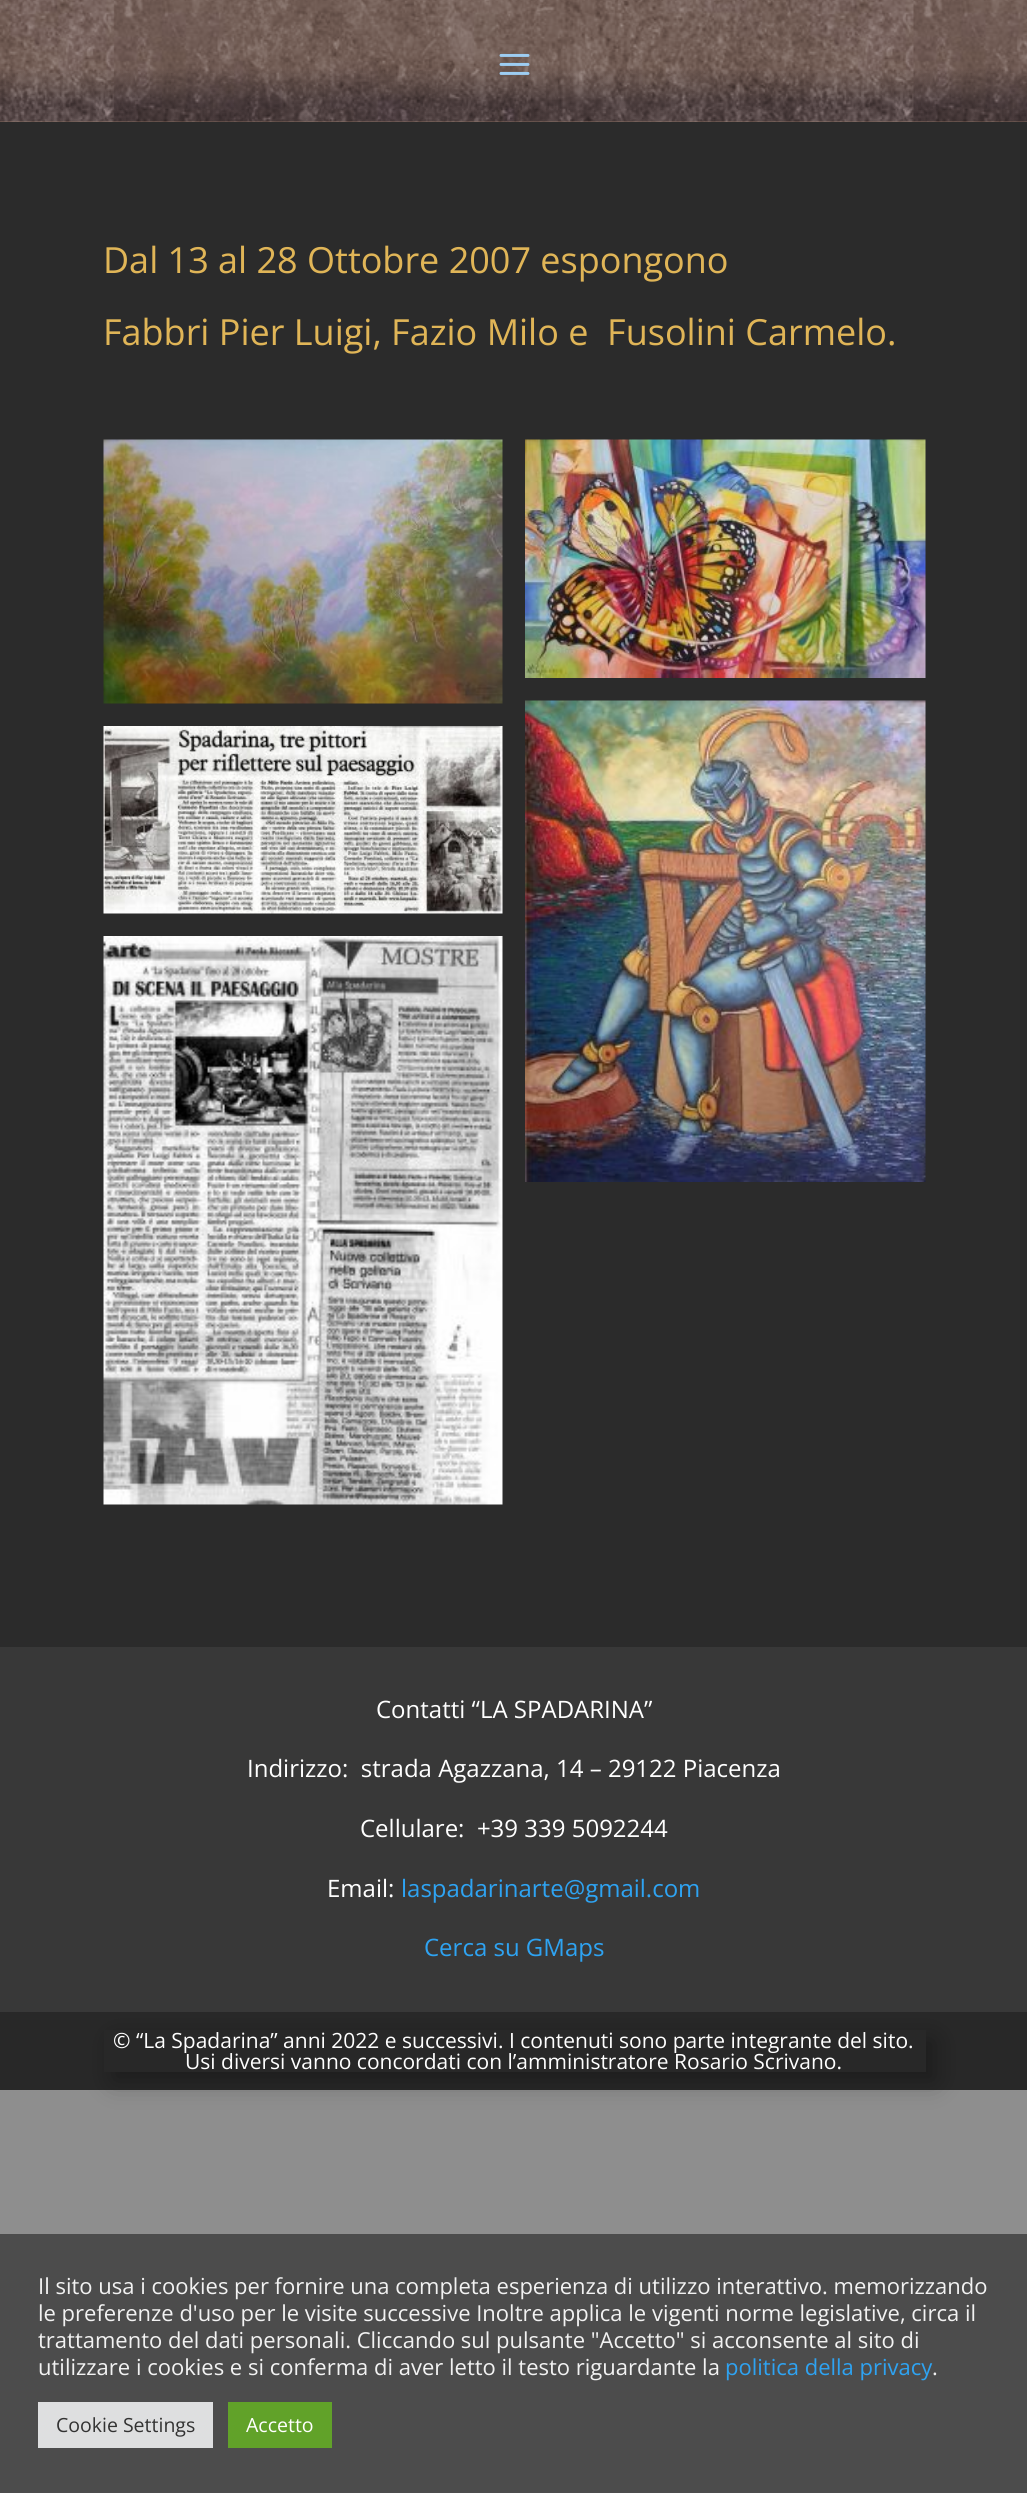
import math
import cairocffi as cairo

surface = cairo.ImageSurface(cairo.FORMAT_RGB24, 1027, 2493)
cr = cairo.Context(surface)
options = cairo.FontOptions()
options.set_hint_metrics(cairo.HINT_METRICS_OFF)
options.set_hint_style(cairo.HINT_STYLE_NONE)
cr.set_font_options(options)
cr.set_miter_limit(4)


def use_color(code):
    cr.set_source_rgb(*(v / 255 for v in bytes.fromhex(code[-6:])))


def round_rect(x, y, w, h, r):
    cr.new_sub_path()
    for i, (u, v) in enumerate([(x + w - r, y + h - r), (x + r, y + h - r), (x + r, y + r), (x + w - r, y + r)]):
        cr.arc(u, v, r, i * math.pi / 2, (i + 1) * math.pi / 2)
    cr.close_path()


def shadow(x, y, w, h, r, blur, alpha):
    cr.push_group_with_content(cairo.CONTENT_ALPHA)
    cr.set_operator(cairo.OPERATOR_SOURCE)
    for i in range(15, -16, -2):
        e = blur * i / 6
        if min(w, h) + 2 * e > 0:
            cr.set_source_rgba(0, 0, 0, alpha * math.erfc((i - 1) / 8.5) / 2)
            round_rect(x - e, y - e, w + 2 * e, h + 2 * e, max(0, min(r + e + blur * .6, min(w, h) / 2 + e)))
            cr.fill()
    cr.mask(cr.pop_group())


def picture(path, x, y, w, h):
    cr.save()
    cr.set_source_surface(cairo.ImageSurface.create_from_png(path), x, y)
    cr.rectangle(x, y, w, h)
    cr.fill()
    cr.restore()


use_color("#8e8e8e")
cr.paint()
use_color("#8c614e")
cr.rectangle(0, 121, 1027, 1)
cr.fill()
picture("img1.png", 0, 0, 1027, 122)
picture("img2.png", 499, 53, 31, 22)
use_color("#2b2b2b")
cr.rectangle(0, 122, 1027, 1525)
cr.fill()
cr.select_font_face("Open Sans")
cr.set_font_size(36)
use_color("#e0b557")
cr.move_to(103, 273)
cr.show_text("Dal 13 al 28 Ottobre 2007 espongono")
cr.move_to(103, 345)
cr.show_text("Fabbri Pier Luigi, Fazio Milo e  Fusolini Carmelo.")
picture("img3.png", 103, 439, 400, 265)
picture("img4.png", 525, 439, 401, 239)
picture("img5.png", 103, 726, 400, 188)
picture("img6.png", 525, 700, 401, 482)
picture("img7.png", 103, 936, 400, 569)
use_color("#383838")
cr.rectangle(0, 1647, 1027, 365)
cr.fill()
cr.set_font_size(24)
use_color("#ffffff")
cr.move_to(376, 1718)
cr.show_text("Contatti “LA SPADARINA”")
cr.move_to(247, 1777)
cr.show_text("Indirizzo:  strada Agazzana, 14 – 29122 Piacenza")
cr.move_to(360, 1837)
cr.show_text("Cellulare:  +39 339 5092244")
cr.move_to(327, 1897)
cr.show_text("Email:")
use_color("#2ea3f2")
cr.move_to(401, 1897)
cr.show_text("laspadarinarte@gmail.com")
cr.move_to(424, 1956)
cr.show_text("Cerca su GMaps")
use_color("#282828")
cr.rectangle(0, 2012, 1027, 78)
cr.fill()
cr.save()
cr.set_fill_rule(cairo.FILL_RULE_EVEN_ODD)
cr.new_path()
cr.move_to(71, 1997)
cr.line_to(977, 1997)
cr.line_to(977, 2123)
cr.line_to(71, 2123)
cr.close_path()
cr.move_to(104, 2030)
cr.line_to(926, 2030)
cr.line_to(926, 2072)
cr.line_to(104, 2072)
cr.close_path()
cr.clip()
use_color("#000000")
shadow(113, 2039, 822, 42, 0, 13.5, 0.3)
cr.restore()
cr.set_font_size(21)
use_color("#ffffff")
cr.move_to(113, 2048)
cr.show_text("© “La Spadarina” anni 2022 e successivi. I contenuti sono parte integrante del sito.")
cr.move_to(185, 2069)
cr.show_text("Usi diversi vanno concordati con l’amministratore Rosario Scrivano.")
use_color("#4c4c4c")
cr.rectangle(0, 2234, 1027, 259)
cr.fill()
cr.set_font_size(22)
use_color("#f2f2f2")
cr.move_to(38, 2294)
cr.show_text("Il sito usa i cookies per fornire una completa esperienza di utilizzo interattivo. memorizzando")
cr.move_to(38, 2321)
cr.show_text("le preferenze d'uso per le visite successive Inoltre applica le vigenti norme legislative, circa il")
cr.move_to(38, 2348)
cr.show_text("trattamento del dati personali. Cliccando sul pulsante \"Accetto\" si acconsente al sito di")
cr.move_to(38, 2375)
cr.show_text("utilizzare i cookies e si conferma di aver letto il testo riguardante la")
use_color("#2ea3f2")
cr.move_to(725, 2375)
cr.show_text("politica della privacy")
use_color("#f2f2f2")
cr.move_to(932, 2375)
cr.show_text(".")
use_color("#dedfe0")
cr.rectangle(38, 2402, 175, 46)
cr.fill()
cr.set_font_size(19.5)
use_color("#333333")
cr.move_to(56, 2432)
cr.show_text("Cookie Settings")
use_color("#61a229")
cr.rectangle(228, 2402, 104, 46)
cr.fill()
use_color("#ffffff")
cr.move_to(246, 2432)
cr.show_text("Accetto")
surface.write_to_png("result.png")
